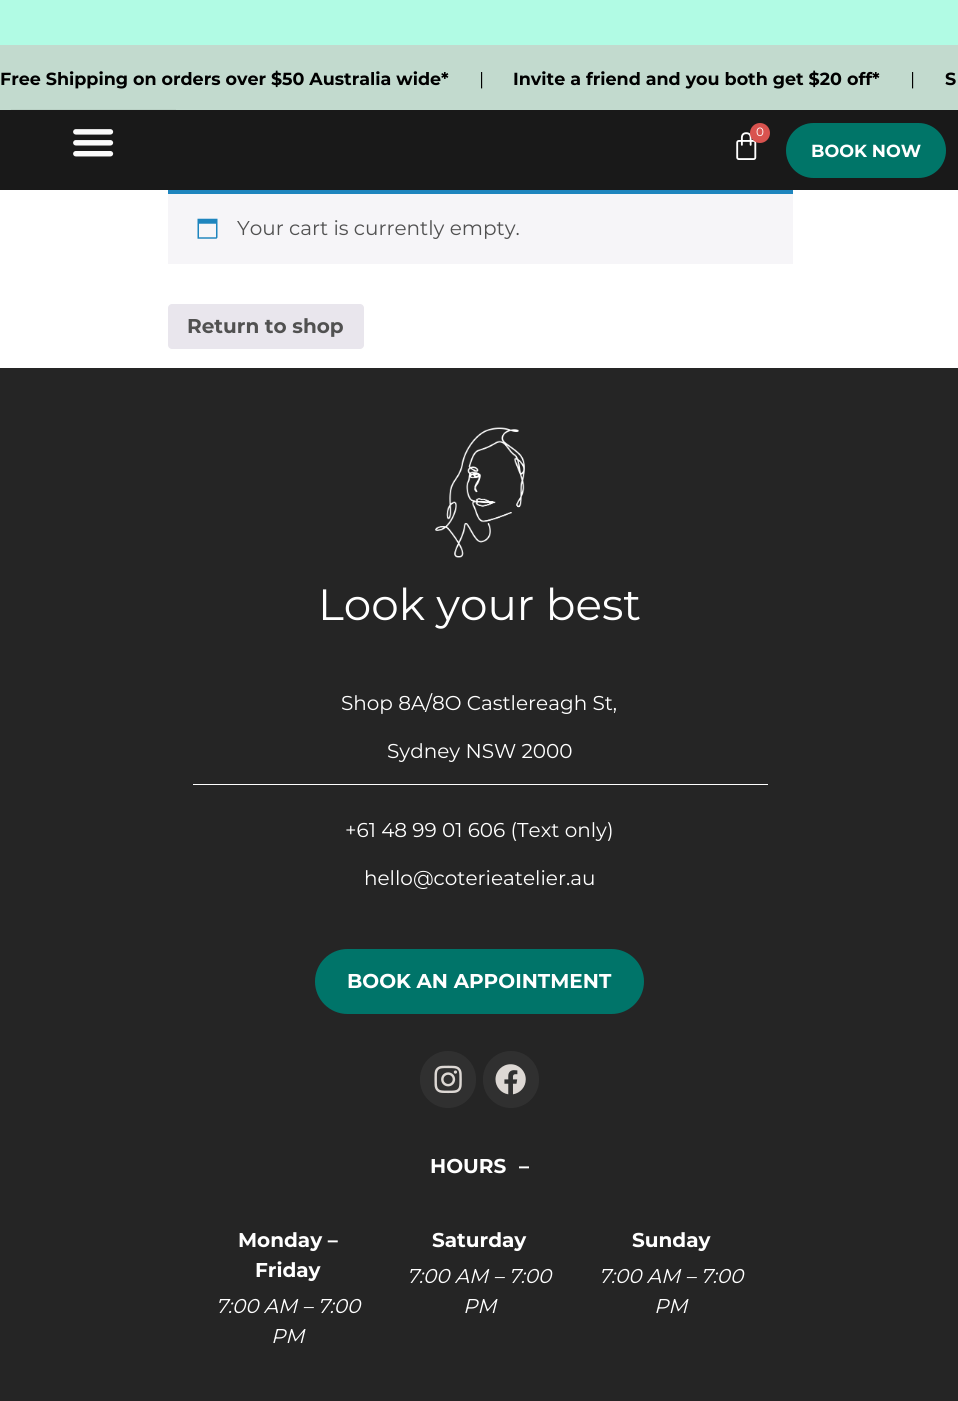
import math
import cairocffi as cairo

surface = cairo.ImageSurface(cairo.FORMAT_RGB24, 958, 1401)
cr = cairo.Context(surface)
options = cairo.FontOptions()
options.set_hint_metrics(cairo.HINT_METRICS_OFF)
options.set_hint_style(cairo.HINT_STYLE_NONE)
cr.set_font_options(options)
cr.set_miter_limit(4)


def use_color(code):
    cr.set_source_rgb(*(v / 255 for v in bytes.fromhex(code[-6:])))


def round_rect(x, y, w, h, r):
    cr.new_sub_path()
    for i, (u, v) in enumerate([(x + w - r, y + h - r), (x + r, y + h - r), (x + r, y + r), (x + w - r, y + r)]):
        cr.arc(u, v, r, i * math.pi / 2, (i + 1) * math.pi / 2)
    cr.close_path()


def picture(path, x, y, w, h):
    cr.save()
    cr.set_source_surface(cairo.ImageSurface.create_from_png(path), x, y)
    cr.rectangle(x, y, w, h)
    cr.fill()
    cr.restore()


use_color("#ffffff")
cr.paint()
use_color("#b1fbe4")
cr.rectangle(0, 0, 958, 45)
cr.fill()
use_color("#c2dace")
cr.rectangle(0, 45, 958, 65)
cr.fill()
cr.select_font_face("Montserrat", cairo.FONT_SLANT_NORMAL, cairo.FONT_WEIGHT_BOLD)
cr.set_font_size(17.5)
use_color("#000000")
cr.move_to(0, 85)
cr.show_text("Free Shipping on orders over $50 Australia wide*")
cr.select_font_face("Montserrat")
cr.move_to(479, 85)
cr.show_text("|")
cr.select_font_face("Montserrat", cairo.FONT_SLANT_NORMAL, cairo.FONT_WEIGHT_BOLD)
cr.move_to(513, 85)
cr.show_text("Invite a friend and you both get $20 off*")
cr.select_font_face("Montserrat")
cr.move_to(910, 85)
cr.show_text("|")
cr.select_font_face("Montserrat", cairo.FONT_SLANT_NORMAL, cairo.FONT_WEIGHT_BOLD)
cr.move_to(945, 85)
cr.show_text("S")
use_color("#191919")
cr.rectangle(0, 110, 958, 80)
cr.fill()
cr.set_source_rgba(0, 0, 0, 0.05)
cr.rectangle(11, 109, 165, 1)
cr.fill()
picture("img1.png", 73, 129, 41, 28)
picture("img2.png", 736, 132, 21, 28)
use_color("#d9534f")
cr.arc(760, 133, 10, 0, 2 * math.pi)
cr.fill()
cr.select_font_face("Montserrat")
cr.set_font_size(12)
use_color("#ffffff")
cr.move_to(756, 136)
cr.show_text("0")
use_color("#007568")
round_rect(786, 123, 160, 55, 27.5)
cr.fill()
cr.select_font_face("Montserrat", cairo.FONT_SLANT_NORMAL, cairo.FONT_WEIGHT_BOLD)
cr.set_font_size(17.5)
use_color("#ffffff")
cr.move_to(811, 157)
cr.show_text("BOOK NOW")
use_color("#f6f5f8")
cr.rectangle(168, 194, 625, 70)
cr.fill()
use_color("#1e85be")
cr.rectangle(168, 190, 625, 4)
cr.fill()
picture("img3.png", 197, 218, 21, 21)
cr.select_font_face("Montserrat")
cr.set_font_size(20)
use_color("#515151")
cr.move_to(237, 235)
cr.show_text("Your cart is currently empty.")
use_color("#e9e6ed")
round_rect(168, 304, 196, 45, 4)
cr.fill()
cr.select_font_face("Montserrat", cairo.FONT_SLANT_NORMAL, cairo.FONT_WEIGHT_BOLD)
use_color("#515151")
cr.move_to(187, 333)
cr.show_text("Return to shop")
use_color("#252525")
cr.rectangle(0, 368, 958, 1033)
cr.fill()
picture("img4.png", 435, 427, 90, 131)
cr.select_font_face("Montserrat")
cr.set_font_size(43.75)
use_color("#ffffff")
cr.move_to(318, 620)
cr.show_text("Look your best")
cr.rectangle(193, 784, 575, 1)
cr.fill()
cr.set_font_size(20)
cr.move_to(341, 710)
cr.show_text("Shop 8A/8O Castlereagh St,")
cr.move_to(387, 758)
cr.show_text("Sydney NSW 2000")
cr.move_to(345, 837)
cr.show_text("+61 48 99 01 606 (Text only)")
cr.move_to(364, 885)
cr.show_text("hello@coterieatelier.au")
use_color("#007469")
round_rect(315, 949, 329, 65, 32.5)
cr.fill()
cr.select_font_face("Montserrat", cairo.FONT_SLANT_NORMAL, cairo.FONT_WEIGHT_BOLD)
use_color("#ffffff")
cr.move_to(347, 988)
cr.show_text("BOOK AN APPOINTMENT")
use_color("#303030")
round_rect(420, 1051, 56, 57, 28)
cr.fill()
picture("img5.png", 434, 1065, 28, 29)
round_rect(483, 1051, 56, 57, 28)
cr.fill()
picture("img6.png", 495, 1064, 31, 31)
use_color("#ffffff")
cr.move_to(430, 1173)
cr.show_text("HOURS")
cr.move_to(519, 1173)
cr.show_text("–")
cr.move_to(238, 1247)
cr.show_text("Monday –")
cr.move_to(255, 1277)
cr.show_text("Friday")
cr.select_font_face("Montserrat", cairo.FONT_SLANT_ITALIC)
cr.move_to(216, 1313)
cr.show_text("7:00 AM – 7:00")
cr.move_to(271, 1343)
cr.show_text("PM")
cr.select_font_face("Montserrat", cairo.FONT_SLANT_NORMAL, cairo.FONT_WEIGHT_BOLD)
cr.move_to(432, 1247)
cr.show_text("Saturday")
cr.select_font_face("Montserrat", cairo.FONT_SLANT_ITALIC)
cr.move_to(407, 1283)
cr.show_text("7:00 AM – 7:00")
cr.move_to(463, 1313)
cr.show_text("PM")
cr.select_font_face("Montserrat", cairo.FONT_SLANT_NORMAL, cairo.FONT_WEIGHT_BOLD)
cr.move_to(632, 1247)
cr.show_text("Sunday")
cr.select_font_face("Montserrat", cairo.FONT_SLANT_ITALIC)
cr.move_to(599, 1283)
cr.show_text("7:00 AM – 7:00")
cr.move_to(654, 1313)
cr.show_text("PM")
surface.write_to_png("result.png")
